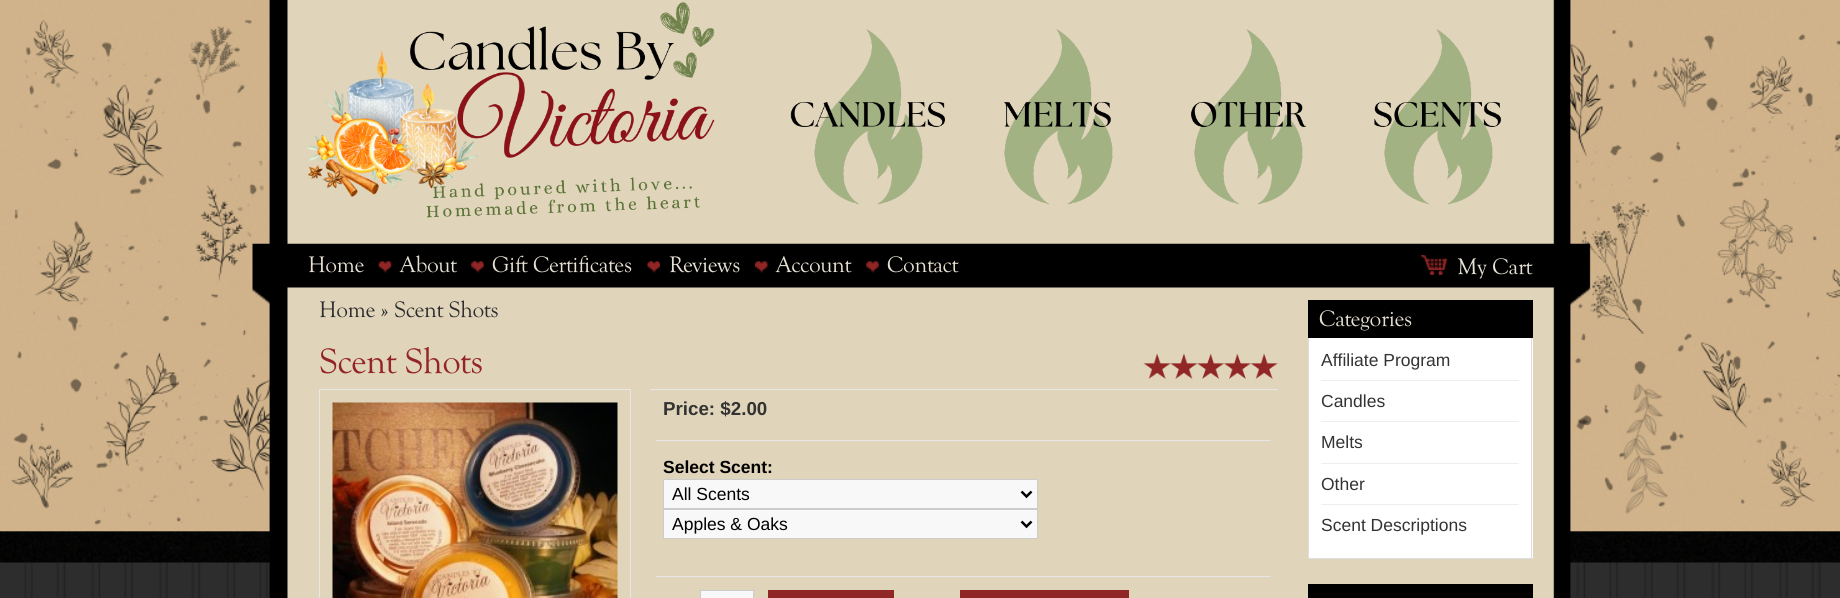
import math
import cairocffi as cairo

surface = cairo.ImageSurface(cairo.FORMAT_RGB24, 1840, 598)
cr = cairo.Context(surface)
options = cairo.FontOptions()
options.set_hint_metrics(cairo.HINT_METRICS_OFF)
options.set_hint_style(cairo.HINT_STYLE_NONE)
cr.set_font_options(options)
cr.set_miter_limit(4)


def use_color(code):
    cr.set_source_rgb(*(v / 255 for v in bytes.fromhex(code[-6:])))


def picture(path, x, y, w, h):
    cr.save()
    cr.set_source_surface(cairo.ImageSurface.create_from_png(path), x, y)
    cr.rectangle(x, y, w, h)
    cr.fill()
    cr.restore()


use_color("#ffffff")
cr.paint()
picture("img1.png", 0, 562, 1840, 36)
picture("img2.png", 0, 0, 1840, 563)
picture("img3.png", 269, 0, 1302, 598)
picture("img4.png", 307, 2, 408, 216)
picture("img5.png", 790, 29, 155, 176)
picture("img6.png", 1004, 29, 109, 176)
picture("img7.png", 1191, 29, 116, 176)
picture("img8.png", 1374, 29, 128, 176)
picture("img9.png", 252, 243, 1339, 63)
cr.select_font_face("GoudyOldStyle")
cr.set_font_size(23.25)
use_color("#e7e1d4")
cr.move_to(308, 272)
cr.show_text("Home")
picture("img10.png", 378, 261, 14, 12)
cr.move_to(400, 272)
cr.show_text("About")
picture("img11.png", 471, 261, 13, 12)
cr.move_to(492, 272)
cr.show_text("Gift Certificates")
picture("img12.png", 647, 261, 13, 12)
cr.move_to(669, 272)
cr.show_text("Reviews")
picture("img13.png", 755, 261, 13, 12)
cr.move_to(776, 272)
cr.show_text("Account")
picture("img11.png", 866, 261, 13, 12)
cr.move_to(887, 272)
cr.show_text("Contact")
picture("img14.png", 1421, 255, 27, 20)
cr.move_to(1457, 274)
cr.show_text("My Cart")
use_color("#2d2d2d")
cr.move_to(319, 317)
cr.show_text("Home » Scent Shots")
cr.set_font_size(36.5)
use_color("#942428")
cr.move_to(319, 373)
cr.show_text("Scent Shots")
picture("img15.png", 1143, 353, 135, 26)
cr.rectangle(319.5, 389.5, 311, 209)
use_color("#e7e7e7")
cr.set_line_width(1)
cr.stroke()
picture("img16.png", 332, 402, 286, 196)
cr.rectangle(650, 389, 628, 1)
cr.fill()
cr.rectangle(656, 440, 615, 1)
cr.fill()
cr.select_font_face("Liberation Sans", cairo.FONT_SLANT_NORMAL, cairo.FONT_WEIGHT_BOLD)
cr.set_font_size(18.75)
use_color("#333333")
cr.move_to(663, 415)
cr.show_text("Price: $2.00")
use_color("#e7e7e7")
cr.rectangle(656, 576, 615, 1)
cr.fill()
cr.set_font_size(17.5)
use_color("#000000")
cr.move_to(663, 473)
cr.show_text("Select Scent:")
use_color("#f8f8f8")
cr.rectangle(663.5, 479.5, 374, 29)
cr.fill_preserve()
use_color("#cccccc")
cr.stroke()
cr.new_path()
cr.move_to(1021.5, 491.5)
cr.line_to(1026.5, 496.5)
cr.line_to(1031.5, 491.5)
use_color("#000000")
cr.set_line_width(2.5)
cr.stroke()
cr.select_font_face("Liberation Sans")
cr.move_to(672, 500)
cr.show_text("All Scents")
use_color("#f8f8f8")
cr.rectangle(663.5, 509.5, 374, 29)
cr.fill_preserve()
use_color("#cccccc")
cr.set_line_width(1)
cr.stroke()
cr.new_path()
cr.move_to(1021.5, 521.5)
cr.line_to(1026.5, 526.5)
cr.line_to(1031.5, 521.5)
use_color("#000000")
cr.set_line_width(2.5)
cr.stroke()
cr.move_to(672, 530)
cr.show_text("Apples & Oaks")
use_color("#f8f8f8")
cr.rectangle(700.5, 590.5, 53, 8)
cr.fill_preserve()
use_color("#cccccc")
cr.set_line_width(1)
cr.stroke()
use_color("#912626")
cr.rectangle(768, 590, 126, 8)
cr.fill()
cr.rectangle(960, 590, 169, 8)
cr.fill()
use_color("#000000")
cr.rectangle(1308, 300, 225, 38)
cr.fill()
cr.select_font_face("GoudyOldStyle")
cr.set_font_size(23.25)
use_color("#e7e1d4")
cr.move_to(1319, 326)
cr.show_text("Categories")
use_color("#ffffff")
cr.rectangle(1309, 338, 224, 220)
cr.fill()
use_color("#dbdee1")
cr.rectangle(1531, 338, 1, 221)
cr.fill()
cr.rectangle(1308, 558, 225, 1)
cr.fill()
cr.rectangle(1308, 338, 1, 221)
cr.fill()
cr.select_font_face("Liberation Sans")
cr.set_font_size(17.5)
use_color("#333333")
cr.move_to(1321, 366)
cr.show_text("Affiliate Program")
use_color("#eeeeee")
cr.rectangle(1321, 380, 198, 1)
cr.fill()
use_color("#333333")
cr.move_to(1321, 407)
cr.show_text("Candles")
use_color("#eeeeee")
cr.rectangle(1321, 421, 198, 1)
cr.fill()
use_color("#333333")
cr.move_to(1321, 448)
cr.show_text("Melts")
use_color("#eeeeee")
cr.rectangle(1321, 463, 198, 1)
cr.fill()
use_color("#333333")
cr.move_to(1321, 490)
cr.show_text("Other")
use_color("#eeeeee")
cr.rectangle(1321, 504, 198, 1)
cr.fill()
use_color("#333333")
cr.move_to(1321, 531)
cr.show_text("Scent Descriptions")
use_color("#000000")
cr.rectangle(1308, 584, 225, 14)
cr.fill()
surface.write_to_png("result.png")
